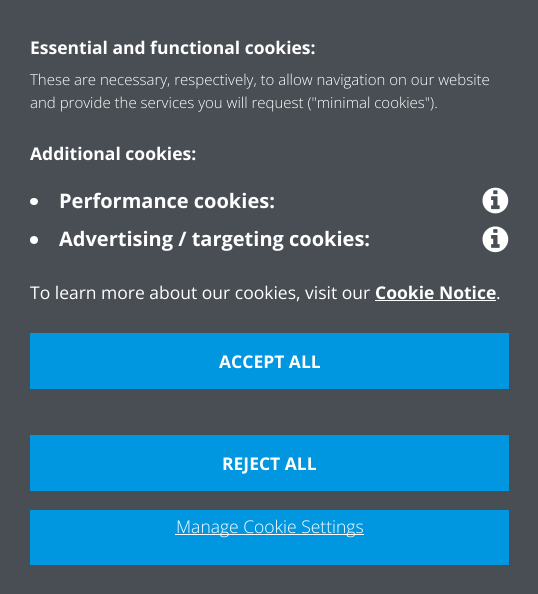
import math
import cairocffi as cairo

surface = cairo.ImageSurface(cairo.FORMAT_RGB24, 538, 594)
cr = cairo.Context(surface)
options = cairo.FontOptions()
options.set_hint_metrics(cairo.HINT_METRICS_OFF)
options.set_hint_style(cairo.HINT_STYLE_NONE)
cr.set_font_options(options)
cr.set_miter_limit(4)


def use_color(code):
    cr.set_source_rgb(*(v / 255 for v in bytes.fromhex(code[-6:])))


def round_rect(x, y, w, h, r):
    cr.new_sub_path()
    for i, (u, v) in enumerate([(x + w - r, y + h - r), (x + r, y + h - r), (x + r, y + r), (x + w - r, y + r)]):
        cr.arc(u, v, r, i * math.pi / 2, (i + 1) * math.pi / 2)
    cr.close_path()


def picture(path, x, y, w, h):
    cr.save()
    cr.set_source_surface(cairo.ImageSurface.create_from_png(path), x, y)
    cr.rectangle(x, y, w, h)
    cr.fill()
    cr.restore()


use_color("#484e54")
cr.paint()
cr.select_font_face("Open Sans", cairo.FONT_SLANT_NORMAL, cairo.FONT_WEIGHT_BOLD)
cr.set_font_size(17.5)
use_color("#ffffff")
cr.move_to(30, 54)
cr.show_text("Essential and functional cookies:")
cr.select_font_face("Open Sans Light")
cr.set_font_size(15)
cr.move_to(30, 85)
cr.show_text("These are necessary, respectively, to allow navigation on our website")
cr.move_to(30, 108)
cr.show_text("and provide the services you will request (\"minimal cookies\").")
cr.select_font_face("Open Sans", cairo.FONT_SLANT_NORMAL, cairo.FONT_WEIGHT_BOLD)
cr.set_font_size(17.5)
cr.move_to(30, 160)
cr.show_text("Additional cookies:")
round_rect(30, 198, 8, 7, 3.5)
cr.fill()
cr.set_font_size(20)
cr.move_to(59, 208)
cr.show_text("Performance cookies:")
picture("img1.png", 482, 187, 27, 27)
cr.arc(34, 240, 4, 0, 2 * math.pi)
cr.fill()
cr.move_to(59, 246)
cr.show_text("Advertising / targeting cookies:")
picture("img2.png", 482, 226, 27, 27)
cr.select_font_face("Open Sans")
cr.set_font_size(17.5)
cr.move_to(30, 299)
cr.show_text("To learn more about our cookies, visit our")
cr.select_font_face("Open Sans", cairo.FONT_SLANT_NORMAL, cairo.FONT_WEIGHT_BOLD)
cr.move_to(375, 299)
cr.show_text("Cookie Notice")
cr.rectangle(375, 300, 121, 1)
cr.fill()
cr.select_font_face("Open Sans")
cr.move_to(496, 299)
cr.show_text(".")
use_color("#0097e0")
cr.rectangle(30, 333, 479, 56)
cr.fill()
cr.select_font_face("Open Sans", cairo.FONT_SLANT_NORMAL, cairo.FONT_WEIGHT_BOLD)
use_color("#ffffff")
cr.move_to(219, 368)
cr.show_text("ACCEPT ALL")
use_color("#0097e0")
cr.rectangle(30, 435, 479, 56)
cr.fill()
use_color("#ffffff")
cr.move_to(222, 470)
cr.show_text("REJECT ALL")
use_color("#0097e0")
cr.rectangle(30, 510, 479, 55)
cr.fill()
use_color("#ffffff")
cr.rectangle(175, 534, 189, 1)
cr.fill()
cr.select_font_face("Open Sans Light")
cr.move_to(176, 533)
cr.show_text("Manage Cookie Settings")
surface.write_to_png("result.png")
